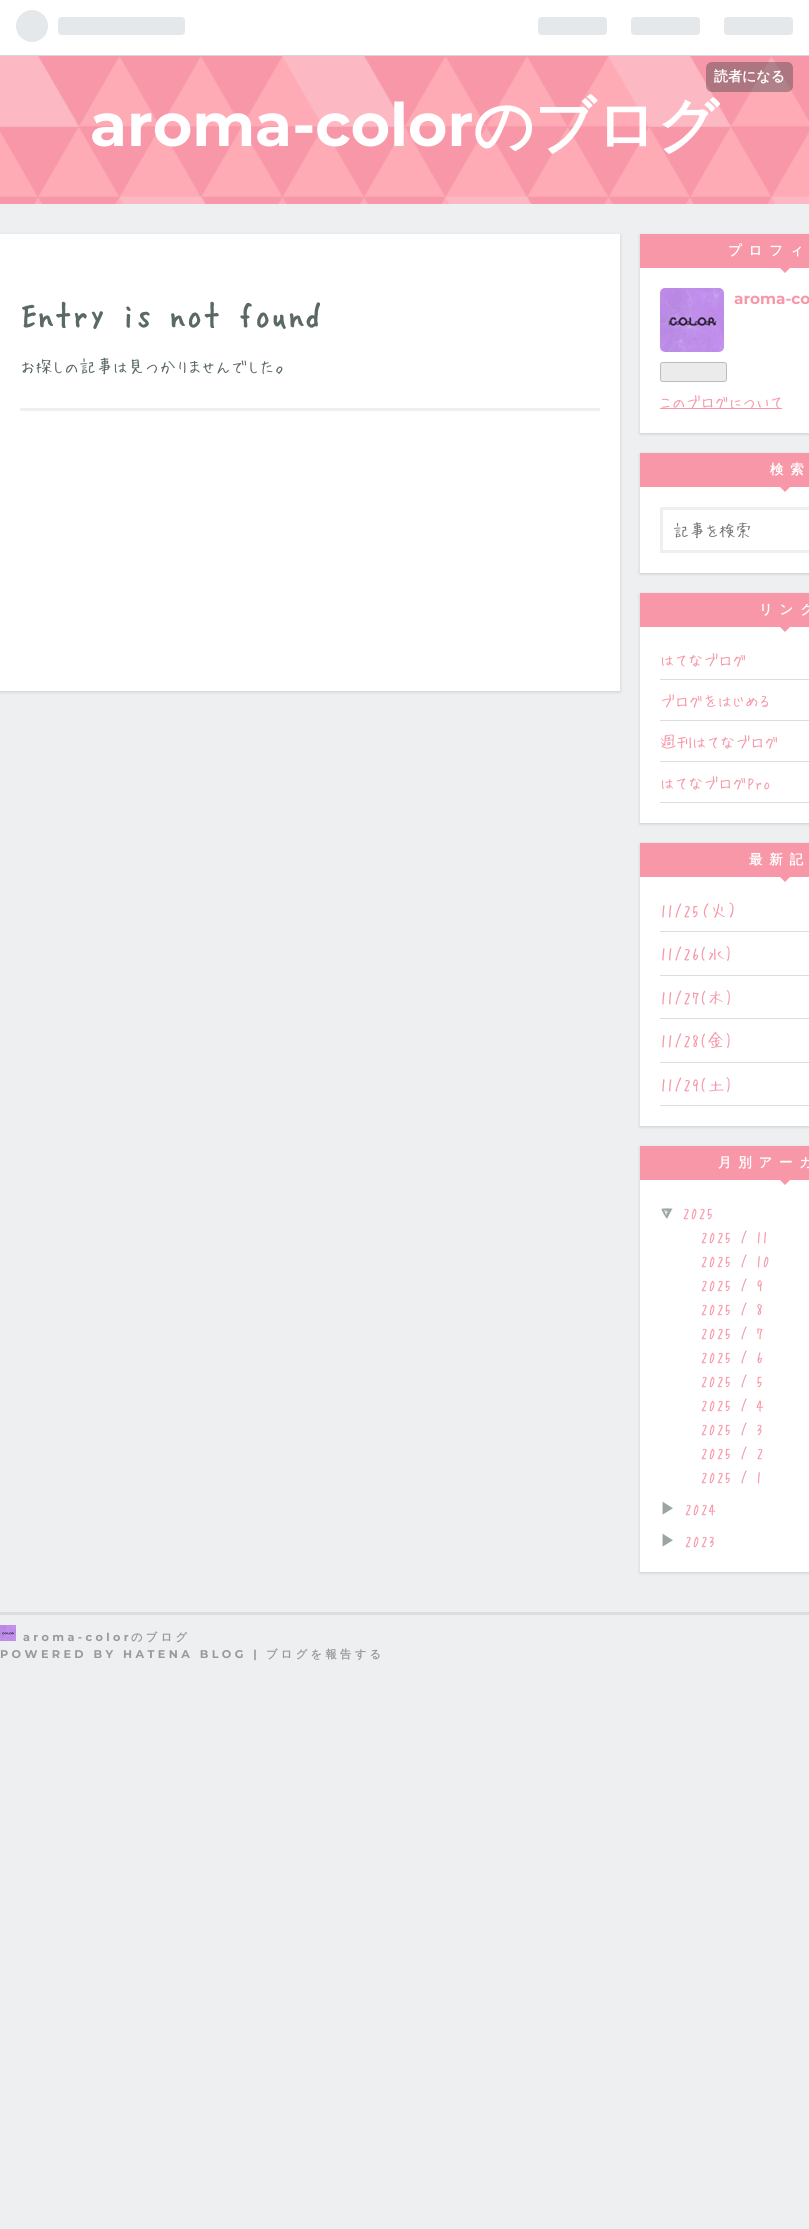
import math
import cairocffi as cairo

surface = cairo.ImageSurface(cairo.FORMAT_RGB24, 809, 2229)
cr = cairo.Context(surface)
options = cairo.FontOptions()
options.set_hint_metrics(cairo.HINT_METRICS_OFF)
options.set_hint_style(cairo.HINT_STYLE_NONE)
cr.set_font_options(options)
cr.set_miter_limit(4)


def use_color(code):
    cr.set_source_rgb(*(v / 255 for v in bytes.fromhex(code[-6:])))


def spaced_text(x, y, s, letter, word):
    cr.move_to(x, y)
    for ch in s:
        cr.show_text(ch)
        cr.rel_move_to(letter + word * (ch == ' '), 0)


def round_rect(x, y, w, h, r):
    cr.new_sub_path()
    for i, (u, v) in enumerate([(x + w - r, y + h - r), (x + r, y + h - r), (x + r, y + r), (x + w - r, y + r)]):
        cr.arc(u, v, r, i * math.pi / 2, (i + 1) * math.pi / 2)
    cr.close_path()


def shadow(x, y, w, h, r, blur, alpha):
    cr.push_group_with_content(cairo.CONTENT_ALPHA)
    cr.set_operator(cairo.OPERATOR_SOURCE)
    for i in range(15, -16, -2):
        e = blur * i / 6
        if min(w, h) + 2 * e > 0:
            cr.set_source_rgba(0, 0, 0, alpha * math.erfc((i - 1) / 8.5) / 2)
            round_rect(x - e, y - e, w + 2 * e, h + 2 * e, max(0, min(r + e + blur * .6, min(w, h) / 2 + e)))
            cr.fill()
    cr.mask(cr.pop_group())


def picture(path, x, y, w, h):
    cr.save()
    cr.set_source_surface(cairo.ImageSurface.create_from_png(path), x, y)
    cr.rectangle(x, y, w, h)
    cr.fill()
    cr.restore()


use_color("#edeff1")
cr.paint()
use_color("#ffffff")
cr.rectangle(0, 0, 809, 55)
cr.fill()
use_color("#d2d8dd")
cr.rectangle(0, 55, 809, 1)
cr.fill()
picture("img1.png", 16, 10, 169, 32)
picture("img2.png", 538, 17, 255, 18)
picture("img3.png", 0, 56, 809, 148)
cr.set_source_rgba(0.239, 0.259, 0.271, 0.4)
round_rect(706, 62, 87, 30, 6)
cr.fill()
cr.select_font_face("WenQuanYi Zen Hei", cairo.FONT_SLANT_NORMAL, cairo.FONT_WEIGHT_BOLD)
cr.set_font_size(14)
use_color("#ffffff")
cr.move_to(714, 81)
cr.show_text("読者になる")
cr.select_font_face("Montserrat", cairo.FONT_SLANT_NORMAL, cairo.FONT_WEIGHT_BOLD)
cr.set_font_size(60)
cr.move_to(90, 146)
cr.show_text("aroma-color")
cr.select_font_face("WenQuanYi Zen Hei", cairo.FONT_SLANT_NORMAL, cairo.FONT_WEIGHT_BOLD)
cr.move_to(473, 146)
cr.show_text("のブログ")
use_color("#000000")
shadow(0, 235, 620, 457, 0, 1.5, 0.15)
use_color("#ffffff")
cr.rectangle(0, 234, 620, 457)
cr.fill()
use_color("#edeff1")
cr.rectangle(20, 408, 580, 3)
cr.fill()
cr.select_font_face("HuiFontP", cairo.FONT_SLANT_NORMAL, cairo.FONT_WEIGHT_BOLD)
cr.set_font_size(33.5)
use_color("#5b6966")
cr.move_to(20, 325)
cr.show_text("Entry is not found")
cr.select_font_face("HuiFontP")
cr.set_font_size(16.75)
cr.move_to(20, 372)
cr.show_text("お探しの記事は見つかりませんでした。")
use_color("#000000")
shadow(640, 235, 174, 199, 0, 1.5, 0.15)
use_color("#f797a8")
cr.rectangle(640, 234, 169, 34)
cr.fill()
cr.select_font_face("WenQuanYi Zen Hei", cairo.FONT_SLANT_NORMAL, cairo.FONT_WEIGHT_BOLD)
cr.set_font_size(13.5)
use_color("#ffffff")
spaced_text(728, 255, "プロフィ", 6.75, 0)
cr.rectangle(640, 268, 169, 165)
cr.fill()
use_color("#f797a8")
cr.new_path()
cr.move_to(780, 268)
cr.line_to(790, 268)
cr.line_to(785, 273)
cr.close_path()
cr.fill()
picture("img4.png", 660, 288, 64, 64)
cr.select_font_face("Montserrat", cairo.FONT_SLANT_NORMAL, cairo.FONT_WEIGHT_BOLD)
cr.set_font_size(15.25)
cr.move_to(734, 304)
cr.show_text("aroma-co")
use_color("#ebebeb")
round_rect(660.5, 362.5, 66, 19, 2.5)
cr.fill_preserve()
use_color("#bbbbbb")
cr.set_line_width(1)
cr.stroke()
use_color("#f797a8")
cr.rectangle(660, 408, 122, 1)
cr.fill()
cr.select_font_face("HuiFontP")
cr.set_font_size(16)
cr.move_to(660, 407)
cr.show_text("このブログについて")
use_color("#000000")
shadow(640, 454, 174, 120, 0, 1.5, 0.15)
use_color("#f797a8")
cr.rectangle(640, 453, 169, 34)
cr.fill()
cr.select_font_face("WenQuanYi Zen Hei", cairo.FONT_SLANT_NORMAL, cairo.FONT_WEIGHT_BOLD)
cr.set_font_size(13.5)
use_color("#ffffff")
spaced_text(770, 474, "検索", 6.75, 0)
cr.rectangle(640, 487, 169, 86)
cr.fill()
use_color("#f797a8")
cr.new_path()
cr.move_to(780, 487)
cr.line_to(790, 487)
cr.line_to(785, 492)
cr.close_path()
cr.fill()
cr.rectangle(661.5, 508.5, 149, 43)
use_color("#edeff1")
cr.set_line_width(3)
cr.stroke()
cr.select_font_face("HuiFontP")
cr.set_font_size(16)
use_color("#757575")
cr.move_to(673, 536)
cr.show_text("記事を検索")
use_color("#000000")
shadow(640, 594, 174, 230, 0, 1.5, 0.15)
use_color("#f797a8")
cr.rectangle(640, 593, 169, 34)
cr.fill()
cr.select_font_face("WenQuanYi Zen Hei", cairo.FONT_SLANT_NORMAL, cairo.FONT_WEIGHT_BOLD)
cr.set_font_size(13.5)
use_color("#ffffff")
spaced_text(759, 614, "リンク", 6.75, 0)
cr.rectangle(640, 627, 169, 196)
cr.fill()
use_color("#f797a8")
cr.new_path()
cr.move_to(780, 627)
cr.line_to(790, 627)
cr.line_to(785, 632)
cr.close_path()
cr.fill()
use_color("#dddddd")
cr.rectangle(660, 679, 149, 1)
cr.fill()
cr.select_font_face("HuiFontP")
cr.set_font_size(16)
use_color("#f797a8")
cr.move_to(660, 665)
cr.show_text("はてなブログ")
use_color("#dddddd")
cr.rectangle(660, 720, 149, 1)
cr.fill()
use_color("#f797a8")
cr.move_to(660, 706)
cr.show_text("ブログをはじめる")
use_color("#dddddd")
cr.rectangle(660, 761, 149, 1)
cr.fill()
use_color("#f797a8")
cr.move_to(660, 747)
cr.show_text("週刊はてなブログ")
use_color("#dddddd")
cr.rectangle(660, 802, 149, 1)
cr.fill()
use_color("#f797a8")
cr.move_to(660, 788)
cr.show_text("はてなブログPro")
use_color("#000000")
shadow(640, 844, 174, 283, 0, 1.5, 0.15)
use_color("#f797a8")
cr.rectangle(640, 843, 169, 34)
cr.fill()
cr.select_font_face("WenQuanYi Zen Hei", cairo.FONT_SLANT_NORMAL, cairo.FONT_WEIGHT_BOLD)
cr.set_font_size(13.5)
use_color("#ffffff")
spaced_text(749, 864, "最新記", 6.75, 0)
cr.rectangle(640, 877, 169, 249)
cr.fill()
use_color("#f797a8")
cr.new_path()
cr.move_to(780, 877)
cr.line_to(790, 877)
cr.line_to(785, 882)
cr.close_path()
cr.fill()
use_color("#dddddd")
cr.rectangle(660, 931, 149, 1)
cr.fill()
cr.select_font_face("HuiFontP")
cr.set_font_size(17.5)
use_color("#f797a8")
cr.move_to(660, 916)
cr.show_text("11/25（火）")
use_color("#dddddd")
cr.rectangle(660, 975, 149, 1)
cr.fill()
use_color("#f797a8")
cr.move_to(660, 959)
cr.show_text("11/26(水)")
use_color("#dddddd")
cr.rectangle(660, 1018, 149, 1)
cr.fill()
use_color("#f797a8")
cr.move_to(660, 1003)
cr.show_text("11/27(木)")
use_color("#dddddd")
cr.rectangle(660, 1062, 149, 1)
cr.fill()
use_color("#f797a8")
cr.move_to(660, 1046)
cr.show_text("11/28(金)")
use_color("#dddddd")
cr.rectangle(660, 1105, 149, 1)
cr.fill()
use_color("#f797a8")
cr.move_to(660, 1090)
cr.show_text("11/29(土)")
use_color("#000000")
shadow(640, 1147, 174, 426, 0, 1.5, 0.15)
use_color("#f797a8")
cr.rectangle(640, 1146, 169, 34)
cr.fill()
cr.select_font_face("WenQuanYi Zen Hei", cairo.FONT_SLANT_NORMAL, cairo.FONT_WEIGHT_BOLD)
cr.set_font_size(13.5)
use_color("#ffffff")
spaced_text(718, 1167, "月別アーカ", 6.75, 0)
cr.rectangle(640, 1180, 169, 392)
cr.fill()
use_color("#f797a8")
cr.new_path()
cr.move_to(780, 1180)
cr.line_to(790, 1180)
cr.line_to(785, 1185)
cr.close_path()
cr.fill()
cr.select_font_face("HuiFontP")
cr.set_font_size(16)
use_color("#9da5a3")
cr.move_to(660, 1218)
cr.show_text("▼")
use_color("#f797a8")
cr.move_to(682, 1218)
cr.show_text("2025")
cr.move_to(700, 1242)
cr.show_text("2025 / 11")
cr.move_to(700, 1266)
cr.show_text("2025 / 10")
cr.move_to(700, 1290)
cr.show_text("2025 / 9")
cr.move_to(700, 1314)
cr.show_text("2025 / 8")
cr.move_to(700, 1338)
cr.show_text("2025 / 7")
cr.move_to(700, 1362)
cr.show_text("2025 / 6")
cr.move_to(700, 1386)
cr.show_text("2025 / 5")
cr.move_to(700, 1410)
cr.show_text("2025 / 4")
cr.move_to(700, 1434)
cr.show_text("2025 / 3")
cr.move_to(700, 1458)
cr.show_text("2025 / 2")
cr.move_to(700, 1482)
cr.show_text("2025 / 1")
cr.select_font_face("WenQuanYi Zen Hei Medium")
use_color("#9da5a3")
cr.move_to(660, 1514)
cr.show_text("▶")
cr.select_font_face("HuiFontP")
use_color("#f797a8")
cr.move_to(684, 1514)
cr.show_text("2024")
cr.select_font_face("WenQuanYi Zen Hei Medium")
use_color("#9da5a3")
cr.move_to(660, 1546)
cr.show_text("▶")
cr.select_font_face("HuiFontP")
use_color("#f797a8")
cr.move_to(684, 1546)
cr.show_text("2023")
use_color("#dddddd")
cr.rectangle(0, 1612, 809, 3)
cr.fill()
picture("img5.png", 0, 1625, 16, 16)
cr.select_font_face("Montserrat", cairo.FONT_SLANT_NORMAL, cairo.FONT_WEIGHT_BOLD)
cr.set_font_size(11.2)
use_color("#999999")
spaced_text(23, 1641, "aroma-color", 3.4, 0)
cr.select_font_face("WenQuanYi Zen Hei", cairo.FONT_SLANT_NORMAL, cairo.FONT_WEIGHT_BOLD)
spaced_text(131, 1641, "のブログ", 3.4, 0)
cr.select_font_face("Montserrat", cairo.FONT_SLANT_NORMAL, cairo.FONT_WEIGHT_BOLD)
spaced_text(0, 1658, "POWERED BY HATENA BLOG |", 3.4, 0)
cr.select_font_face("WenQuanYi Zen Hei", cairo.FONT_SLANT_NORMAL, cairo.FONT_WEIGHT_BOLD)
spaced_text(266, 1658, "ブログを報告する", 3.4, 0)
surface.write_to_png("result.png")
